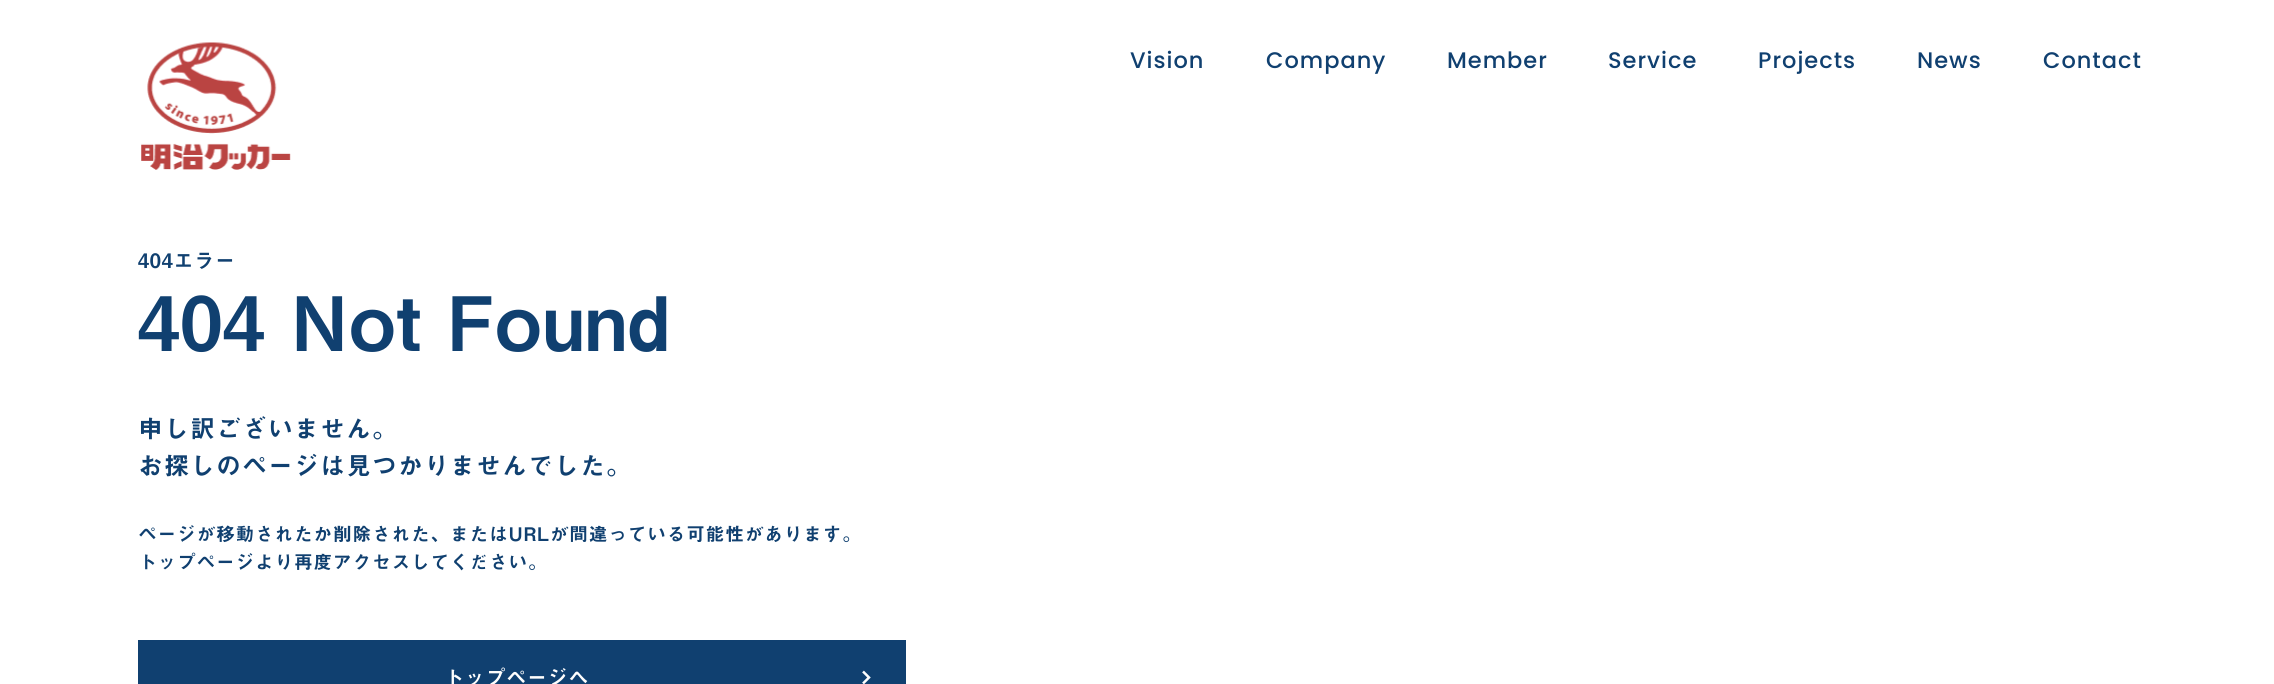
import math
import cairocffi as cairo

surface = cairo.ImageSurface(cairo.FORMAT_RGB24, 2274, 684)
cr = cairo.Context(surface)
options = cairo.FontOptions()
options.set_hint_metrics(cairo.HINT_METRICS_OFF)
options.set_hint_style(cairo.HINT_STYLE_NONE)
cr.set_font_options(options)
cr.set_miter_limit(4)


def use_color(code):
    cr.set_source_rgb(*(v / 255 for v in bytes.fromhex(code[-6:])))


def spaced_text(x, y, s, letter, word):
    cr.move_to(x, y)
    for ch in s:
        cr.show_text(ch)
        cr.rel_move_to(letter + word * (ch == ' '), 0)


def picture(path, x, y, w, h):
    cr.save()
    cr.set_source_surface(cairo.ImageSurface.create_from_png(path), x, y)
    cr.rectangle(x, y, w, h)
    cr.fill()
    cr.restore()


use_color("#ffffff")
cr.paint()
picture("img1.png", 141, 42, 150, 128)
cr.select_font_face("Poppins Medium")
cr.set_font_size(22.5)
use_color("#104070")
spaced_text(1130, 68, "Vision", 1, 0)
spaced_text(1266, 68, "Company", 1, 0)
spaced_text(1447, 68, "Member", 1, 0)
spaced_text(1608, 68, "Service", 1, 0)
spaced_text(1758, 68, "Projects", 1, 0)
spaced_text(1917, 68, "News", 1, 0)
spaced_text(2043, 68, "Contact", 1, 0)
cr.select_font_face("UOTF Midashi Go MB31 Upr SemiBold")
cr.set_font_size(20)
spaced_text(138, 268, "404エラー", 0.75, 0)
cr.set_font_size(75)
spaced_text(138, 351, "404 Not Found", 0.75, 0)
cr.set_font_size(25)
spaced_text(138, 438, "申し訳ございません。", 1, 0)
spaced_text(138, 475, "お探しのページは見つかりませんでした。", 1, 0)
cr.set_font_size(18.75)
spaced_text(138, 541, "ページが移動されたか削除された、またはURLが間違っている可能性があります。", 0.75, 0)
spaced_text(138, 569, "トップページより再度アクセスしてください。", 0.75, 0)
cr.rectangle(138, 640, 768, 44)
cr.fill()
cr.set_font_size(20)
use_color("#fefefe")
spaced_text(444, 685, "トップページへ", 0.75, 0)
cr.new_path()
cr.move_to(863, 671.5)
cr.line_to(869, 677.5)
cr.line_to(863, 683.5)
cr.set_line_width(2.5)
cr.stroke()
surface.write_to_png("result.png")
